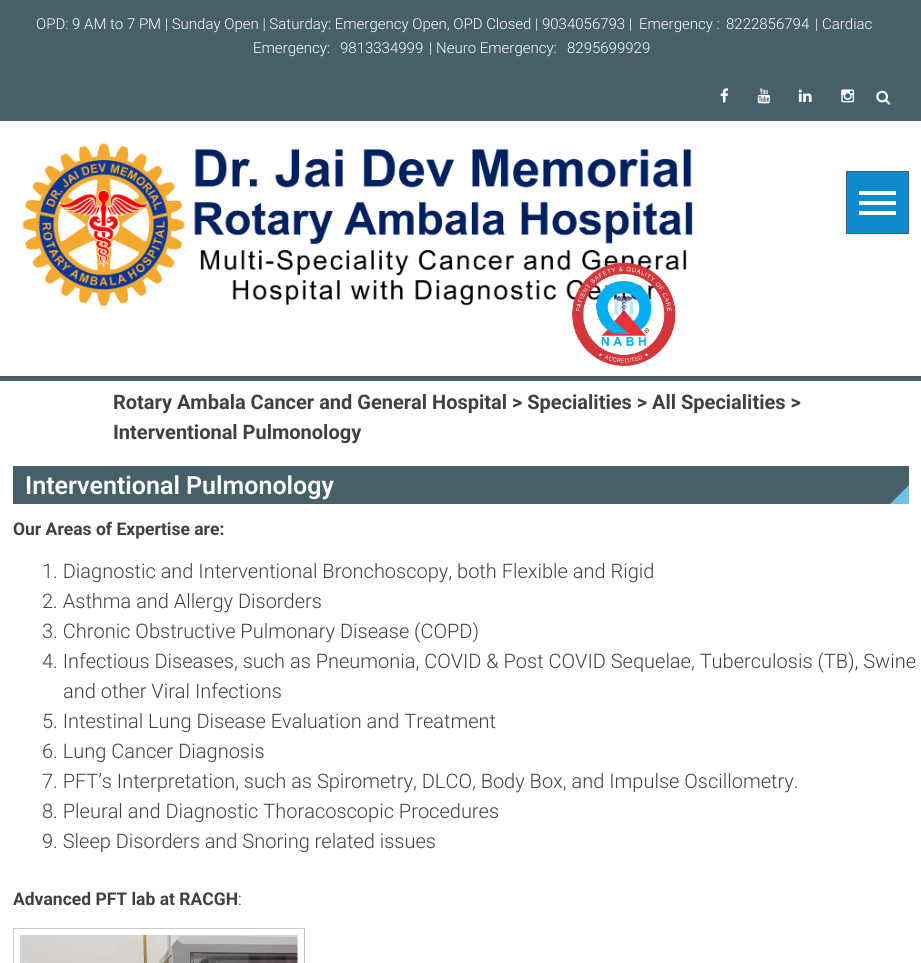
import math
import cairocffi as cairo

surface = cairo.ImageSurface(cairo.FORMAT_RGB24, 921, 963)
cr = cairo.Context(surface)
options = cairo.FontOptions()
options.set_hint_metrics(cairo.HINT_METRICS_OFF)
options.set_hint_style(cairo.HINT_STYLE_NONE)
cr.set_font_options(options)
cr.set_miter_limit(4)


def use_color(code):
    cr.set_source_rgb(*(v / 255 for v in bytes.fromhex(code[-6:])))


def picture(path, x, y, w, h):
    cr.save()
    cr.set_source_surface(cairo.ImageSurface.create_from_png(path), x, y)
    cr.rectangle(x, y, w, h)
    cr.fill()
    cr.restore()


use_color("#ffffff")
cr.paint()
use_color("#466067")
cr.rectangle(0, 0, 921, 121)
cr.fill()
cr.select_font_face("Roboto Light")
cr.set_font_size(15)
use_color("#ffffff")
cr.move_to(36, 29)
cr.show_text("OPD: 9 AM to 7 PM | Sunday Open | Saturday: Emergency Open, OPD Closed | 9034056793 |")
cr.move_to(639, 29)
cr.show_text("Emergency :")
cr.move_to(726, 29)
cr.show_text("8222856794")
cr.move_to(815, 29)
cr.show_text("| Cardiac")
cr.move_to(253, 53)
cr.show_text("Emergency:")
cr.move_to(340, 53)
cr.show_text("9813334999")
cr.move_to(429, 53)
cr.show_text("| Neuro Emergency:")
cr.move_to(567, 53)
cr.show_text("8295699929")
picture("img1.png", 720, 88, 9, 15)
picture("img2.png", 757, 88, 14, 16)
picture("img3.png", 798, 89, 14, 13)
picture("img4.png", 841, 89, 14, 14)
picture("img5.png", 876, 90, 15, 15)
use_color("#466067")
cr.rectangle(0, 376, 921, 5)
cr.fill()
picture("img6.png", 22, 143, 671, 163)
use_color("#0e8acf")
cr.rectangle(846.5, 171.5, 62, 62)
cr.fill_preserve()
use_color("#466067")
cr.set_line_width(1)
cr.stroke()
use_color("#ffffff")
cr.rectangle(859, 191, 37, 4)
cr.fill()
cr.rectangle(859, 201, 37, 4)
cr.fill()
cr.rectangle(859, 211, 37, 4)
cr.fill()
picture("img7.png", 572, 262, 104, 105)
cr.select_font_face("Roboto", cairo.FONT_SLANT_NORMAL, cairo.FONT_WEIGHT_BOLD)
cr.set_font_size(20)
use_color("#404040")
cr.move_to(113, 409)
cr.show_text("Rotary Ambala Cancer and General Hospital > Specialities > All Specialities >")
cr.move_to(113, 439)
cr.show_text("Interventional Pulmonology")
use_color("#466067")
cr.rectangle(13, 466, 896, 38)
cr.fill()
cr.select_font_face("Roboto SemiBold")
cr.set_font_size(25)
use_color("#ffffff")
cr.move_to(25, 494)
cr.show_text("Interventional Pulmonology")
use_color("#70c0e8")
cr.new_path()
cr.move_to(909, 504)
cr.line_to(890, 504)
cr.line_to(909, 485)
cr.close_path()
cr.fill()
cr.select_font_face("Roboto", cairo.FONT_SLANT_NORMAL, cairo.FONT_WEIGHT_BOLD)
cr.set_font_size(17.5)
use_color("#404040")
cr.move_to(13, 535)
cr.show_text("Our Areas of Expertise are:")
cr.select_font_face("Roboto Light")
cr.set_font_size(20)
cr.move_to(42, 578)
cr.show_text("1. Diagnostic and Interventional Bronchoscopy, both Flexible and Rigid")
cr.move_to(42, 608)
cr.show_text("2. Asthma and Allergy Disorders")
cr.move_to(42, 638)
cr.show_text("3. Chronic Obstructive Pulmonary Disease (COPD)")
cr.move_to(42, 668)
cr.show_text("4. Infectious Diseases, such as Pneumonia, COVID & Post COVID Sequelae, Tuberculosis (TB), Swine")
cr.move_to(63, 698)
cr.show_text("and other Viral Infections")
cr.move_to(42, 728)
cr.show_text("5. Intestinal Lung Disease Evaluation and Treatment")
cr.move_to(42, 758)
cr.show_text("6. Lung Cancer Diagnosis")
cr.move_to(42, 788)
cr.show_text("7. PFT’s Interpretation, such as Spirometry, DLCO, Body Box, and Impulse Oscillometry.")
cr.move_to(42, 818)
cr.show_text("8. Pleural and Diagnostic Thoracoscopic Procedures")
cr.move_to(42, 848)
cr.show_text("9. Sleep Disorders and Snoring related issues")
cr.select_font_face("Roboto", cairo.FONT_SLANT_NORMAL, cairo.FONT_WEIGHT_BOLD)
cr.set_font_size(17.5)
cr.move_to(13, 905)
cr.show_text("Advanced PFT lab at RACGH")
cr.select_font_face("Roboto Light")
cr.move_to(238, 905)
cr.show_text(":")
cr.rectangle(13.5, 928.5, 291, 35)
use_color("#cacaca")
cr.stroke()
picture("img8.png", 20, 935, 278, 28)
surface.write_to_png("result.png")
